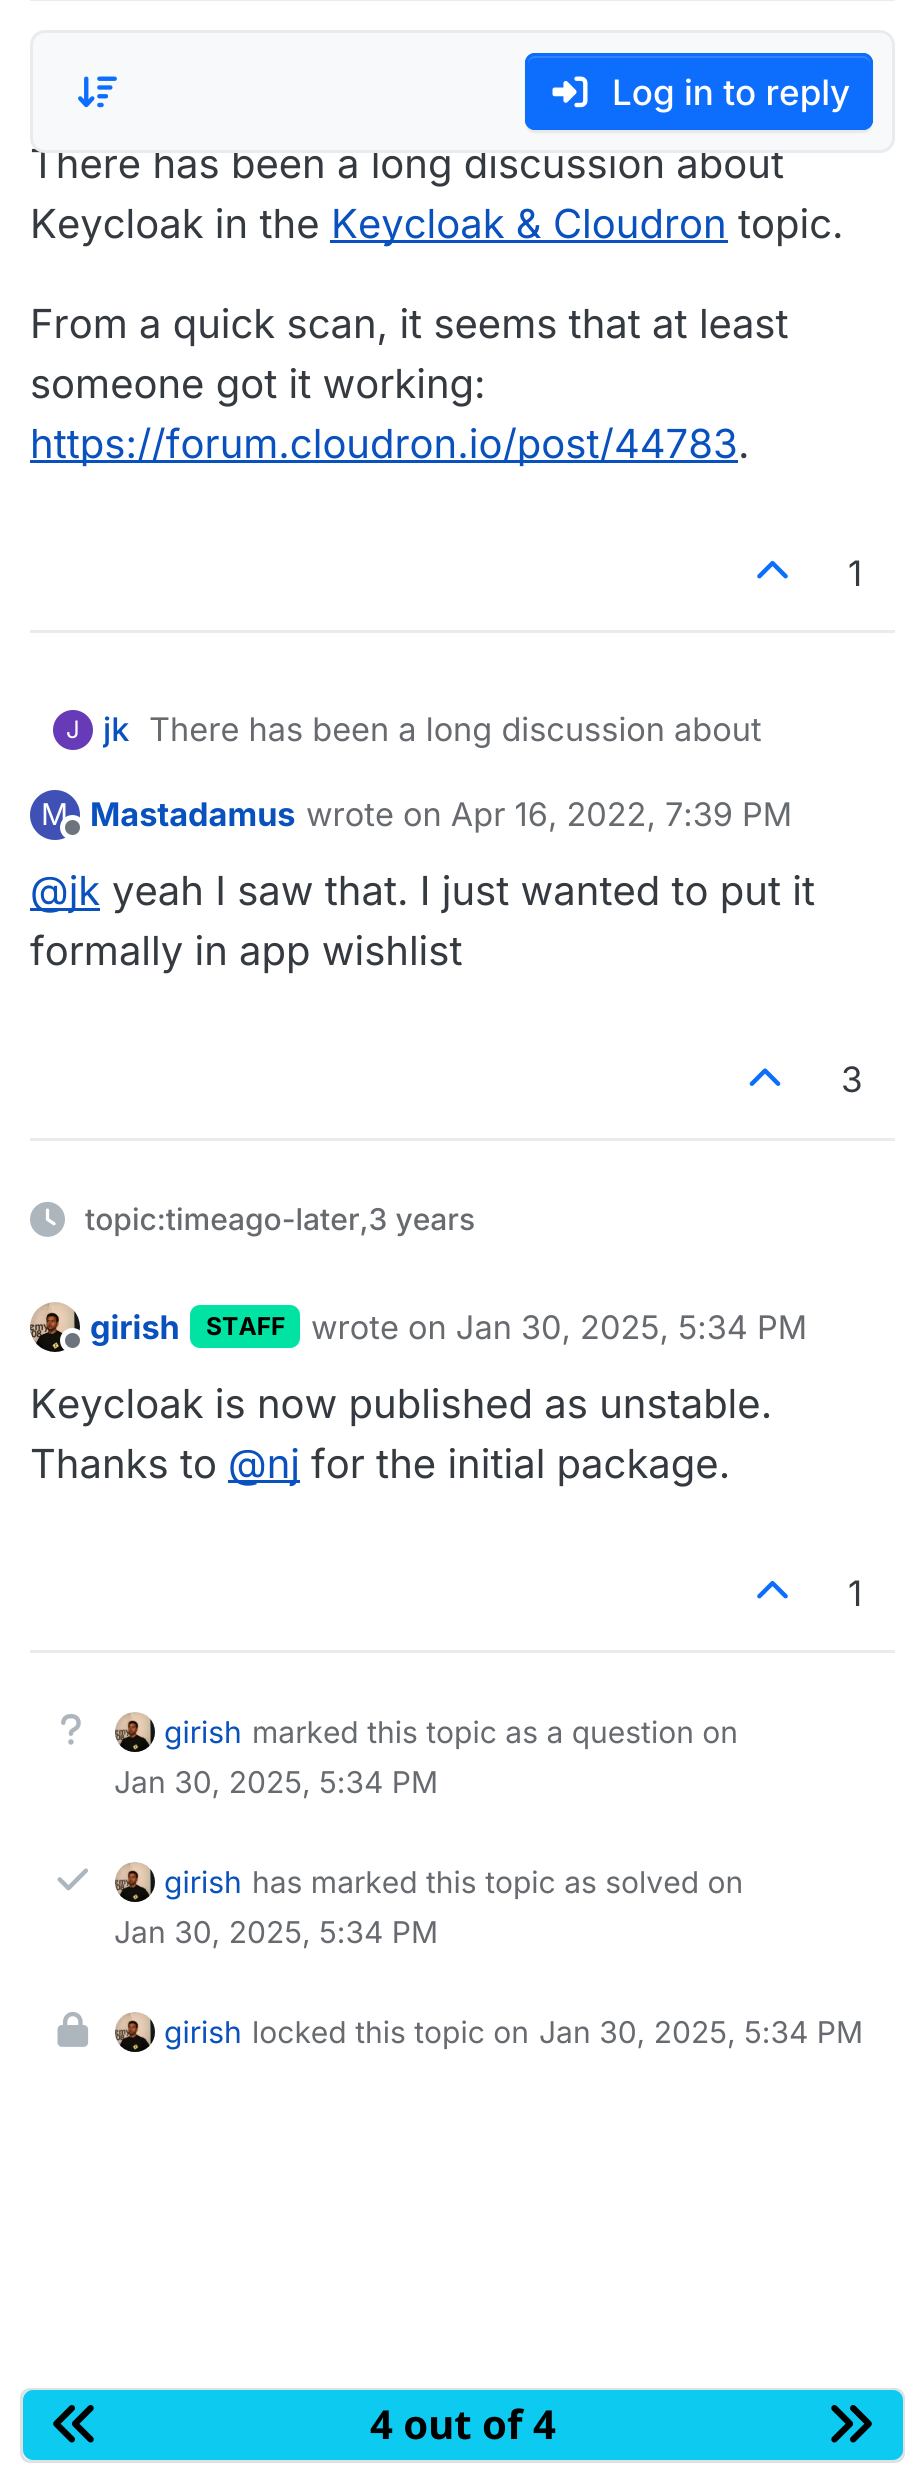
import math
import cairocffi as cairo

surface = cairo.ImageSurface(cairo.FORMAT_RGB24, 924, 2492)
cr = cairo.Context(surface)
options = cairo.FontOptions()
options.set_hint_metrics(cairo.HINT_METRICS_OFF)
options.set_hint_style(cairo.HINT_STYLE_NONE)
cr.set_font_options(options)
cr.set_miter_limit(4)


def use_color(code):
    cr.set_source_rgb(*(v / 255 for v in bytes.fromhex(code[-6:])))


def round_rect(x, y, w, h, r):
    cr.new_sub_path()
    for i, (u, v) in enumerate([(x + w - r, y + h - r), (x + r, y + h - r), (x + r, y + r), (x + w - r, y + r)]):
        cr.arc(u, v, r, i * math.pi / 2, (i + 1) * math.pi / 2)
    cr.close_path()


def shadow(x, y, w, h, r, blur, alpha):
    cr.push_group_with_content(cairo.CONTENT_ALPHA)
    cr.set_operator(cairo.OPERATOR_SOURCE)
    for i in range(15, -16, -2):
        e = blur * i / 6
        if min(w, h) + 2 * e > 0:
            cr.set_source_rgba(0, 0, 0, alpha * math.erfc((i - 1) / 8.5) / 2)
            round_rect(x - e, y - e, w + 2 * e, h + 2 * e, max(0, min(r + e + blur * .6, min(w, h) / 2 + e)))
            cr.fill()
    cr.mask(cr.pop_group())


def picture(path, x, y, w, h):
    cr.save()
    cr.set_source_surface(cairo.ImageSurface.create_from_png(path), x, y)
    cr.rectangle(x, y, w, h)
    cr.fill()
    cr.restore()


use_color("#ffffff")
cr.paint()
cr.select_font_face("Inter")
cr.set_font_size(40)
use_color("#343a40")
cr.move_to(30, 178)
cr.show_text("There has been a long discussion about")
use_color("#f8f9fa")
round_rect(31.5, 31.5, 862, 120, 13.5)
cr.fill_preserve()
use_color("#e9ecef")
cr.set_line_width(3)
cr.stroke()
picture("img1.png", 78, 76, 39, 32)
use_color("#000000")
shadow(525, 55, 348, 78, 10, 1, 0.07)
use_color("#0d6efd")
round_rect(525, 53, 348, 77, 10)
cr.fill()
use_color("#3184fd")
cr.new_path()
cr.move_to(535, 58)
cr.line_to(862, 58)
cr.curve_to(867, 58, 870, 61, 870, 65)
cr.line_to(870, 63)
cr.curve_to(870, 59, 866, 55, 862, 55)
cr.line_to(536, 55)
cr.curve_to(532, 55, 528, 59, 528, 63)
cr.line_to(528, 65)
cr.curve_to(528, 61, 531, 58, 535, 58)
cr.close_path()
cr.fill()
round_rect(526.5, 54.5, 345, 74, 8.5)
use_color("#0d6efd")
cr.stroke()
picture("img2.png", 552, 76, 36, 32)
cr.select_font_face("Inter Medium")
cr.set_font_size(35)
use_color("#ffffff")
cr.move_to(612, 105)
cr.show_text("Log in to reply")
use_color("#e9ecef")
cr.rectangle(30, 0, 865, 1)
cr.fill()
cr.select_font_face("Inter")
cr.set_font_size(40)
use_color("#343a40")
cr.move_to(30, 238)
cr.show_text("Keycloak in the")
use_color("#0951be")
cr.rectangle(330, 240, 398, 3)
cr.fill()
cr.move_to(331, 238)
cr.show_text("Keycloak & Cloudron")
use_color("#343a40")
cr.move_to(738, 238)
cr.show_text("topic.")
cr.move_to(30, 338)
cr.show_text("From a quick scan, it seems that at least")
cr.move_to(30, 398)
cr.show_text("someone got it working:")
use_color("#0951be")
cr.rectangle(30, 460, 708, 3)
cr.fill()
cr.move_to(30, 458)
cr.show_text("https://forum.cloudron.io/post/44783")
use_color("#343a40")
cr.move_to(738, 458)
cr.show_text(".")
use_color("#e9ecef")
cr.rectangle(30, 630, 865, 3)
cr.fill()
picture("img3.png", 757, 561, 31, 18)
cr.set_font_size(35)
use_color("#343a40")
cr.move_to(848, 586)
cr.show_text("1")
use_color("#673ab7")
cr.new_path()
cr.arc(73, 730, 20, 0, 2 * math.pi)
cr.fill()
cr.set_font_size(24)
use_color("#ffffff")
cr.move_to(66, 738)
cr.show_text("J")
cr.save()
cr.rectangle(103, 705, 27, 50)
cr.clip()
cr.select_font_face("Inter Medium")
cr.set_font_size(32.5)
use_color("#0951be")
cr.move_to(103, 741)
cr.show_text("jk")
cr.restore()
cr.set_font_size(32.5)
use_color("#676b70")
cr.move_to(149, 741)
cr.show_text("There has been a long discussion about")
use_color("#3f51b5")
cr.new_path()
cr.arc(55, 815, 25, 0, 2 * math.pi)
cr.fill()
cr.set_font_size(30)
use_color("#ffffff")
cr.move_to(41, 825)
cr.show_text("M")
use_color("#6c757d")
cr.new_path()
cr.arc(72.5, 827.5, 10, 0, 2 * math.pi)
cr.fill_preserve()
use_color("#ffffff")
cr.set_line_width(5)
cr.stroke()
cr.select_font_face("Inter", cairo.FONT_SLANT_NORMAL, cairo.FONT_WEIGHT_BOLD)
cr.set_font_size(32.5)
use_color("#0951be")
cr.move_to(90, 826)
cr.show_text("Mastadamus")
cr.select_font_face("Inter")
use_color("#676b70")
cr.move_to(306, 826)
cr.show_text("wrote on Apr 16, 2022, 7:39 PM")
use_color("#0951be")
cr.rectangle(30, 908, 70, 3)
cr.fill()
cr.set_font_size(40)
cr.move_to(30, 905)
cr.show_text("@jk")
use_color("#343a40")
cr.move_to(112, 905)
cr.show_text("yeah I saw that. I just wanted to put it")
cr.move_to(30, 965)
cr.show_text("formally in app wishlist")
use_color("#e9ecef")
cr.rectangle(30, 1138, 865, 3)
cr.fill()
picture("img4.png", 749, 1068, 32, 18)
cr.set_font_size(35)
use_color("#343a40")
cr.move_to(841, 1092)
cr.show_text("3")
picture("img5.png", 30, 1201, 35, 36)
cr.select_font_face("Inter Medium")
cr.set_font_size(30)
use_color("#676b70")
cr.move_to(85, 1230)
cr.show_text("topic:timeago-later,3 years")
picture("img6.png", 30, 1302, 50, 50)
use_color("#6c757d")
cr.arc(72.5, 1340.5, 10, 0, 2 * math.pi)
cr.fill_preserve()
use_color("#ffffff")
cr.stroke()
cr.select_font_face("Inter", cairo.FONT_SLANT_NORMAL, cairo.FONT_WEIGHT_BOLD)
cr.set_font_size(32.5)
use_color("#0951be")
cr.move_to(90, 1339)
cr.show_text("girish")
use_color("#00e3a3")
round_rect(190, 1305, 110, 43, 10)
cr.fill()
cr.set_font_size(24.5)
use_color("#000000")
cr.move_to(206, 1335)
cr.show_text("STAFF")
cr.select_font_face("Inter")
cr.set_font_size(32.5)
use_color("#676b70")
cr.move_to(311, 1339)
cr.show_text("wrote on Jan 30, 2025, 5:34 PM")
cr.set_font_size(40)
use_color("#343a40")
cr.move_to(30, 1418)
cr.show_text("Keycloak is now published as unstable.")
cr.move_to(30, 1478)
cr.show_text("Thanks to")
use_color("#0951be")
cr.rectangle(228, 1480, 72, 3)
cr.fill()
cr.move_to(228, 1478)
cr.show_text("@nj")
use_color("#343a40")
cr.move_to(311, 1478)
cr.show_text("for the initial package.")
use_color("#e9ecef")
cr.rectangle(30, 1650, 865, 3)
cr.fill()
picture("img3.png", 757, 1581, 31, 18)
cr.set_font_size(35)
use_color("#343a40")
cr.move_to(848, 1606)
cr.show_text("1")
picture("img7.png", 61, 1714, 20, 31)
picture("img8.png", 115, 1712, 40, 40)
cr.set_font_size(30)
use_color("#0951be")
cr.move_to(164, 1743)
cr.show_text("girish")
use_color("#676b70")
cr.move_to(252, 1743)
cr.show_text("marked this topic as a question on")
cr.move_to(114, 1793)
cr.show_text("Jan 30, 2025, 5:34 PM")
picture("img9.png", 57, 1868, 32, 23)
picture("img10.png", 115, 1862, 40, 40)
use_color("#0951be")
cr.move_to(164, 1893)
cr.show_text("girish")
use_color("#676b70")
cr.move_to(252, 1893)
cr.show_text("has marked this topic as solved on")
cr.move_to(114, 1943)
cr.show_text("Jan 30, 2025, 5:34 PM")
picture("img11.png", 57, 2011, 32, 36)
picture("img10.png", 115, 2012, 40, 40)
use_color("#0951be")
cr.move_to(164, 2043)
cr.show_text("girish")
use_color("#676b70")
cr.move_to(252, 2043)
cr.show_text("locked this topic on")
cr.move_to(539, 2043)
cr.show_text("Jan 30, 2025, 5:34 PM")
use_color("#f8f9fa")
round_rect(21.5, 2389.5, 882, 72, 8.5)
cr.fill_preserve()
use_color("#dee2e6")
cr.set_line_width(3)
cr.stroke()
use_color("#0dcaf0")
round_rect(23, 2390, 880, 70, 10)
cr.fill()
picture("img12.png", 53, 2405, 41, 38)
cr.select_font_face("Noto Sans", cairo.FONT_SLANT_NORMAL, cairo.FONT_WEIGHT_BOLD)
cr.set_font_size(40)
use_color("#000000")
cr.move_to(370, 2439)
cr.show_text("4 out of 4")
picture("img13.png", 831, 2405, 41, 38)
surface.write_to_png("result.png")
